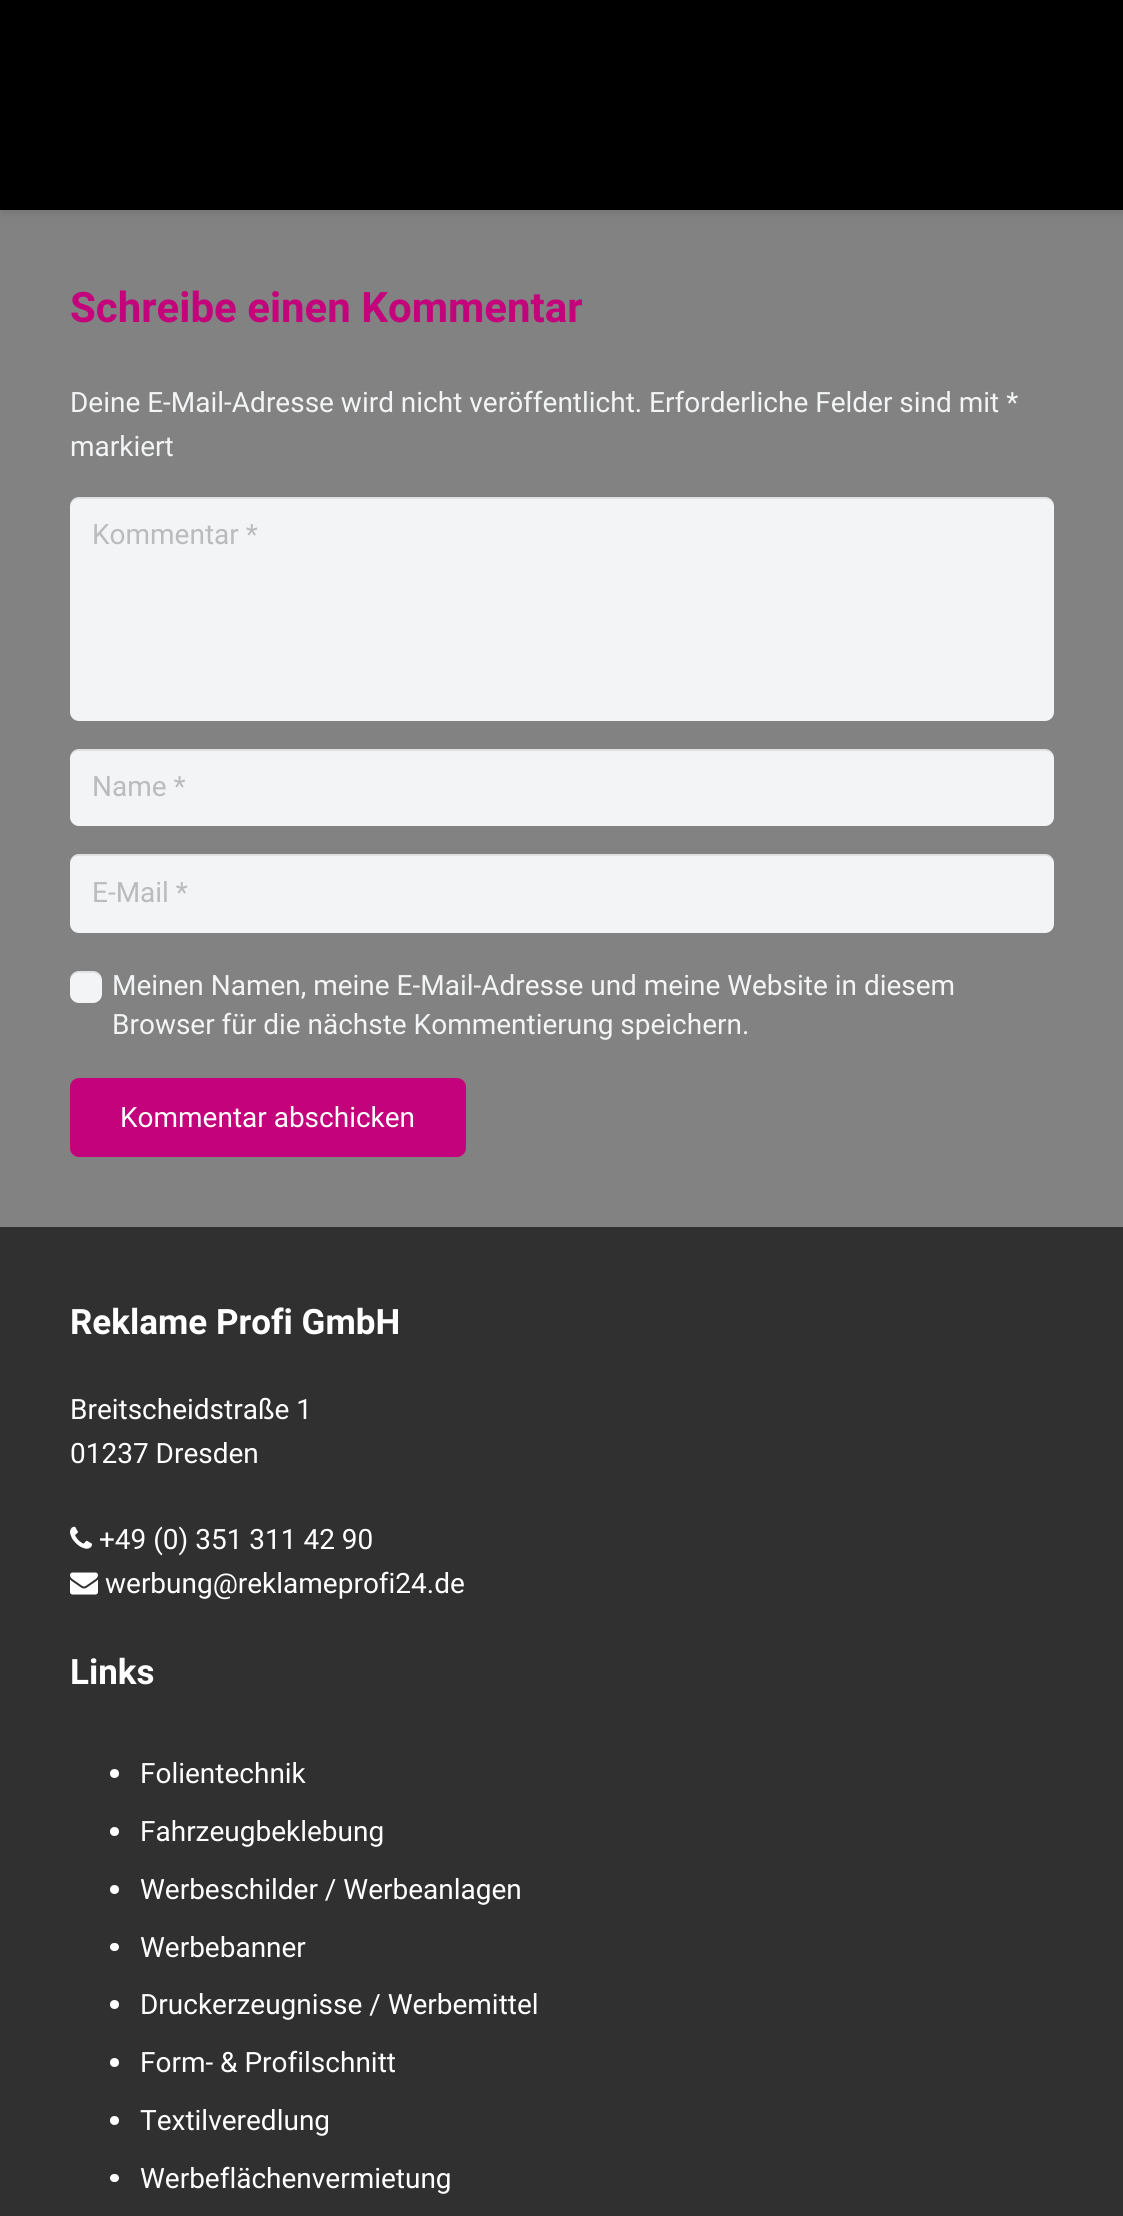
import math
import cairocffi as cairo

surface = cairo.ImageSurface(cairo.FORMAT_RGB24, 1123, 2216)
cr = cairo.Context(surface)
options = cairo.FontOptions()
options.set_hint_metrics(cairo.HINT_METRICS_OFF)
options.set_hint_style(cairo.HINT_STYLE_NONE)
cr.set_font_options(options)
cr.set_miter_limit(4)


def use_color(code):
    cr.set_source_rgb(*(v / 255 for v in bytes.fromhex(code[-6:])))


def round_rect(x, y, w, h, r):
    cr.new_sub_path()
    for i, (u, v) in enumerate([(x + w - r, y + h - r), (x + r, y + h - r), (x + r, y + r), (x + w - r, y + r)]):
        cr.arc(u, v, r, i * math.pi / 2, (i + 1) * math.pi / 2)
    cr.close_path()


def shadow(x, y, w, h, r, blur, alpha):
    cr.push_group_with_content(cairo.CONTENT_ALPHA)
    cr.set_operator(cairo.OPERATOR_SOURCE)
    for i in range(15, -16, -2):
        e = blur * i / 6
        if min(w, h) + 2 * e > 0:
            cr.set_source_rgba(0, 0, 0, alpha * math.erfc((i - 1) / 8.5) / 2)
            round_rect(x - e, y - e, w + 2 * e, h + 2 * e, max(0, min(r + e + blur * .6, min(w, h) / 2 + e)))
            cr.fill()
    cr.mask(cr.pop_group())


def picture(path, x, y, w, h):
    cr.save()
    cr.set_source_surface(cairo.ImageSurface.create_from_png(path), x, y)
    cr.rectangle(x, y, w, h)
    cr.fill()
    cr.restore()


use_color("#828282")
cr.paint()
use_color("#000000")
cr.rectangle(0, 0, 1123, 70)
cr.fill()
use_color("#000000")
shadow(2, 77, 1120, 137, 0, 4.5, 0.1)
use_color("#000000")
cr.rectangle(0, 70, 1123, 140)
cr.fill()
cr.select_font_face("Roboto", cairo.FONT_SLANT_NORMAL, cairo.FONT_WEIGHT_BOLD)
cr.set_font_size(42)
use_color("#c3027b")
cr.move_to(70, 322)
cr.show_text("Schreibe einen Kommentar")
cr.select_font_face("Roboto")
cr.set_font_size(28)
use_color("#f2f4f5")
cr.move_to(70, 412)
cr.show_text("Deine E-Mail-Adresse wird nicht veröffentlicht. Erforderliche Felder sind mit *")
cr.move_to(70, 456)
cr.show_text("markiert")
round_rect(70, 497, 984, 224, 9)
cr.fill()
cr.set_source_rgba(0, 0, 0, 0.08)
cr.new_path()
cr.move_to(78, 499)
cr.line_to(1045, 499)
cr.curve_to(1050, 499, 1054, 503, 1054, 507)
cr.line_to(1054, 506)
cr.curve_to(1054, 501, 1050, 497, 1045, 497)
cr.line_to(79, 497)
cr.curve_to(74, 497, 70, 501, 70, 506)
cr.line_to(70, 507)
cr.curve_to(70, 503, 74, 499, 78, 499)
cr.close_path()
cr.fill()
use_color("#babbbc")
cr.move_to(92, 544)
cr.show_text("Kommentar *")
use_color("#f2f4f5")
round_rect(70, 749, 984, 77, 9)
cr.fill()
cr.set_source_rgba(0, 0, 0, 0.08)
cr.new_path()
cr.move_to(78, 751)
cr.line_to(1045, 751)
cr.curve_to(1050, 751, 1054, 755, 1054, 759)
cr.line_to(1054, 758)
cr.curve_to(1054, 753, 1050, 749, 1045, 749)
cr.line_to(79, 749)
cr.curve_to(74, 749, 70, 753, 70, 758)
cr.line_to(70, 759)
cr.curve_to(70, 755, 74, 751, 78, 751)
cr.close_path()
cr.fill()
use_color("#babbbc")
cr.move_to(92, 796)
cr.show_text("Name *")
use_color("#f2f4f5")
round_rect(70, 854, 984, 79, 9)
cr.fill()
cr.set_source_rgba(0, 0, 0, 0.08)
cr.new_path()
cr.move_to(78, 856)
cr.line_to(1045, 856)
cr.curve_to(1050, 856, 1054, 860, 1054, 864)
cr.line_to(1054, 863)
cr.curve_to(1054, 858, 1050, 854, 1045, 854)
cr.line_to(79, 854)
cr.curve_to(74, 854, 70, 858, 70, 863)
cr.line_to(70, 864)
cr.curve_to(70, 860, 74, 856, 78, 856)
cr.close_path()
cr.fill()
use_color("#babbbc")
cr.move_to(92, 902)
cr.show_text("E-Mail *")
use_color("#f2f4f5")
round_rect(70, 971, 32, 32, 9)
cr.fill()
cr.set_source_rgba(0, 0, 0, 0.08)
cr.new_path()
cr.move_to(78, 973)
cr.line_to(93, 973)
cr.curve_to(98, 973, 102, 977, 102, 981)
cr.curve_to(102, 976.5, 99.5, 972, 95, 971)
cr.line_to(77, 971)
cr.curve_to(72.5, 972, 70, 976.5, 70, 981)
cr.curve_to(70, 977, 74, 973, 78, 973)
cr.close_path()
cr.fill()
use_color("#f2f4f5")
cr.move_to(112, 995)
cr.show_text("Meinen Namen, meine E-Mail-Adresse und meine Website in diesem")
cr.move_to(112, 1034)
cr.show_text("Browser für die nächste Kommentierung speichern.")
use_color("#c3027b")
round_rect(70, 1078, 396, 79, 9)
cr.fill()
use_color("#ffffff")
cr.move_to(120, 1127)
cr.show_text("Kommentar abschicken")
use_color("#303030")
cr.rectangle(0, 1227, 1123, 989)
cr.fill()
cr.select_font_face("Roboto", cairo.FONT_SLANT_NORMAL, cairo.FONT_WEIGHT_BOLD)
cr.set_font_size(35)
use_color("#ffffff")
cr.move_to(70, 1334)
cr.show_text("Reklame Profi GmbH")
cr.select_font_face("Roboto")
cr.set_font_size(28)
cr.move_to(70, 1419)
cr.show_text("Breitscheidstraße 1")
cr.move_to(70, 1463)
cr.show_text("01237 Dresden")
picture("img1.png", 70, 1526, 22, 23)
cr.move_to(99, 1549)
cr.show_text("+49 (0) 351 311 42 90")
picture("img2.png", 70, 1572, 28, 23)
cr.move_to(105, 1593)
cr.show_text("werbung@reklameprofi24.de")
cr.select_font_face("Roboto", cairo.FONT_SLANT_NORMAL, cairo.FONT_WEIGHT_BOLD)
cr.set_font_size(35)
cr.move_to(70, 1684)
cr.show_text("Links")
cr.new_path()
cr.arc(114.5, 1773.5, 4.5, 0, 2 * math.pi)
cr.fill()
cr.select_font_face("Roboto")
cr.set_font_size(28)
cr.move_to(140, 1783)
cr.show_text("Folientechnik")
cr.new_path()
cr.arc(114.5, 1831.5, 4.5, 0, 2 * math.pi)
cr.fill()
cr.move_to(140, 1841)
cr.show_text("Fahrzeugbeklebung")
cr.new_path()
cr.arc(114.5, 1889.5, 4.5, 0, 2 * math.pi)
cr.fill()
cr.move_to(140, 1899)
cr.show_text("Werbeschilder / Werbeanlagen")
round_rect(110, 1943, 9, 8, 4)
cr.fill()
cr.move_to(140, 1957)
cr.show_text("Werbebanner")
cr.new_path()
cr.arc(114.5, 2004.5, 4.5, 0, 2 * math.pi)
cr.fill()
cr.move_to(140, 2014)
cr.show_text("Druckerzeugnisse / Werbemittel")
cr.new_path()
cr.arc(114.5, 2062.5, 4.5, 0, 2 * math.pi)
cr.fill()
cr.move_to(140, 2072)
cr.show_text("Form- & Profilschnitt")
cr.new_path()
cr.arc(114.5, 2120.5, 4.5, 0, 2 * math.pi)
cr.fill()
cr.move_to(140, 2130)
cr.show_text("Textilveredlung")
round_rect(110, 2174, 9, 8, 4)
cr.fill()
cr.move_to(140, 2188)
cr.show_text("Werbeflächenvermietung")
surface.write_to_png("result.png")
